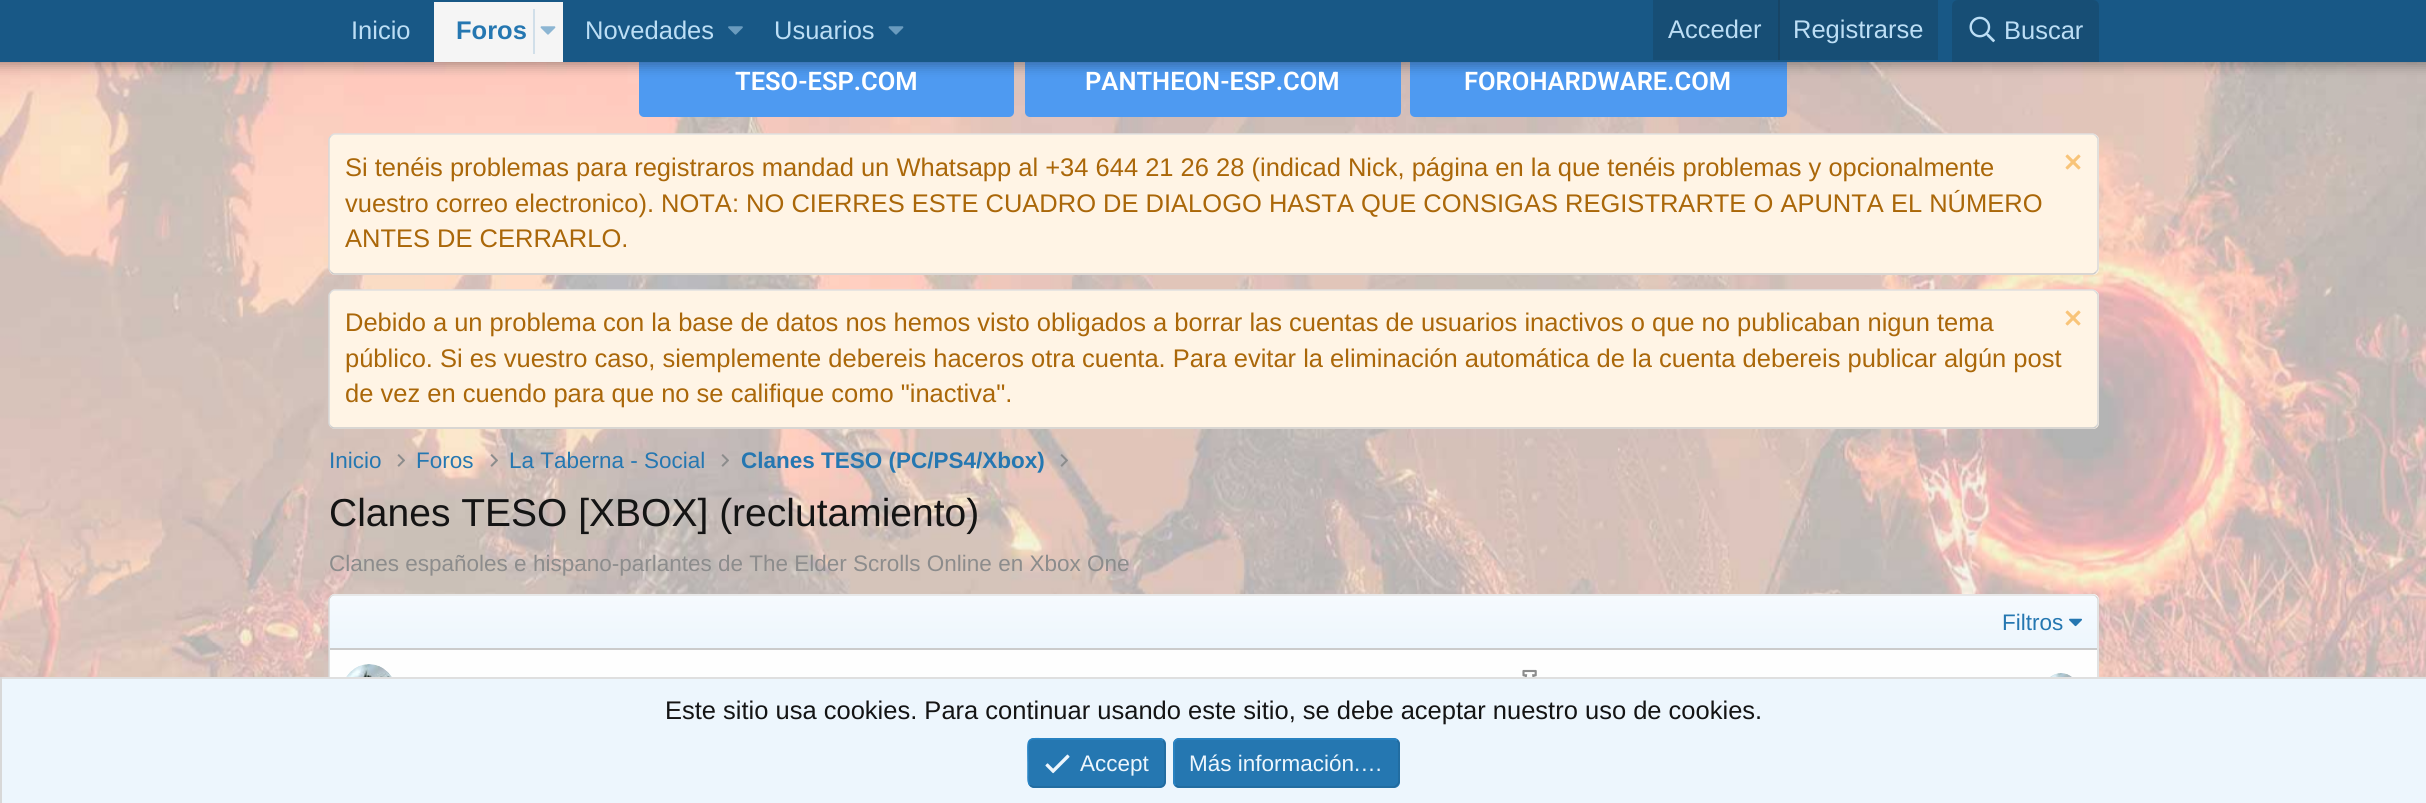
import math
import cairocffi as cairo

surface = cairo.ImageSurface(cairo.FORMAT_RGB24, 2426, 803)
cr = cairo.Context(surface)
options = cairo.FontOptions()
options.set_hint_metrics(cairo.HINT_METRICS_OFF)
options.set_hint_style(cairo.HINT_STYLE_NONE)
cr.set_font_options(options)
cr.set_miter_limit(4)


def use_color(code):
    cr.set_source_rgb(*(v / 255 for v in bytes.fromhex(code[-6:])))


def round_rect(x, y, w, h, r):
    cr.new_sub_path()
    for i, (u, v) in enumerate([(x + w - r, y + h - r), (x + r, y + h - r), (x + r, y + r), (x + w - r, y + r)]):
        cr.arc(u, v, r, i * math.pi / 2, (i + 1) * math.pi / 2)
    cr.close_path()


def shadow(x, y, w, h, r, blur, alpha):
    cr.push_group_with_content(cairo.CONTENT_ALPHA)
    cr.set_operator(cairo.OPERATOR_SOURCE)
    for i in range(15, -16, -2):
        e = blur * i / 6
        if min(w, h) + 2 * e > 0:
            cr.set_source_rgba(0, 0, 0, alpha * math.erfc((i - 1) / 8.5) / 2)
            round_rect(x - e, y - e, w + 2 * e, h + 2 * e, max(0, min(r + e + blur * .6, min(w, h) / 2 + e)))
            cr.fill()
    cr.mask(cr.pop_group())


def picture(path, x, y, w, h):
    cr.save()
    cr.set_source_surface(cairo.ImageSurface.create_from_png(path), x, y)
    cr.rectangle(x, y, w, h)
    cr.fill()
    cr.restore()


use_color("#ffffff")
cr.paint()
picture("img1.png", 0, 62, 2426, 615)
use_color("#4e9af1")
round_rect(639, 48, 375, 69, 5)
cr.fill()
round_rect(1025, 48, 376, 69, 5)
cr.fill()
round_rect(1410, 48, 377, 69, 5)
cr.fill()
use_color("#000000")
shadow(-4, -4, 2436, 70, 0, 6, 0.3)
use_color("#185886")
cr.rectangle(0, 0, 2426, 62)
cr.fill()
cr.select_font_face("Liberation Sans")
cr.set_font_size(25.5)
use_color("#bcdef5")
cr.move_to(351, 39)
cr.show_text("Inicio")
use_color("#f5f5f5")
cr.rectangle(434, 2, 129, 60)
cr.fill()
cr.select_font_face("Liberation Sans", cairo.FONT_SLANT_NORMAL, cairo.FONT_WEIGHT_BOLD)
use_color("#2577b1")
cr.move_to(456, 39)
cr.show_text("Foros")
use_color("#d1dfe9")
cr.rectangle(533, 9, 2, 45)
cr.fill()
picture("img2.png", 540, 26, 16, 9)
cr.select_font_face("Liberation Sans")
use_color("#bcdef5")
cr.move_to(585, 39)
cr.show_text("Novedades")
picture("img3.png", 728, 26, 15, 9)
cr.move_to(774, 39)
cr.show_text("Usuarios")
picture("img4.png", 888, 26, 16, 9)
use_color("#174e75")
cr.rectangle(1653, 0, 285, 60)
cr.fill()
use_color("#bcdef5")
cr.move_to(1668, 38)
cr.show_text("Acceder")
use_color("#174566")
cr.rectangle(1778, 0, 2, 60)
cr.fill()
use_color("#bcdef5")
cr.move_to(1793, 38)
cr.show_text("Registrarse")
use_color("#174e75")
cr.new_path()
cr.move_to(1958, 0)
cr.line_to(2093, 0)
cr.curve_to(2096.5, 0, 2099, 2.5, 2099, 6)
cr.line_to(2099, 62)
cr.line_to(1952, 62)
cr.line_to(1952, 6)
cr.curve_to(1952, 2.5, 1954.5, 0, 1958, 0)
cr.close_path()
cr.fill()
picture("img5.png", 1969, 16, 26, 27)
use_color("#bcdef5")
cr.move_to(2004, 39)
cr.show_text("Buscar")
cr.select_font_face("Roboto SemiBold")
use_color("#ffffff")
cr.move_to(735, 90)
cr.show_text("TESO-ESP.COM")
cr.move_to(1085, 90)
cr.show_text("PANTHEON-ESP.COM")
cr.move_to(1464, 90)
cr.show_text("FOROHARDWARE.COM")
use_color("#fff4e5")
round_rect(329, 134, 1770, 141, 6)
cr.fill()
cr.new_path()
cr.move_to(331, 136)
cr.curve_to(332, 135, 333, 134, 334.5, 134)
cr.line_to(2092.5, 134)
cr.curve_to(2094, 134, 2095, 135, 2096, 136)
use_color("#dfdfdf")
cr.set_line_width(1.5)
cr.stroke()
cr.new_path()
cr.move_to(2096, 136)
cr.curve_to(2097, 137, 2098, 138, 2098, 139.5)
cr.line_to(2098, 268.5)
cr.curve_to(2098, 270, 2097, 271, 2096, 272)
use_color("#d8d8d8")
cr.stroke()
cr.new_path()
cr.move_to(2096, 272)
cr.curve_to(2095, 273, 2094, 274, 2092.5, 274)
cr.line_to(334.5, 274)
cr.curve_to(333, 274, 332, 273, 331, 272)
use_color("#cbcbcb")
cr.stroke()
cr.new_path()
cr.move_to(331, 272)
cr.curve_to(330, 271, 329, 270, 329, 268.5)
cr.line_to(329, 139.5)
cr.curve_to(329, 138, 330, 137, 331, 136)
use_color("#d8d8d8")
cr.stroke()
cr.select_font_face("Liberation Sans")
use_color("#aa6709")
cr.move_to(345, 176)
cr.show_text("Si tenéis problemas para registraros mandad un Whatsapp al +34 644 21 26 28 (indicad Nick, página en la que tenéis problemas y opcionalmente")
picture("img6.png", 2065, 154, 16, 16)
cr.move_to(345, 212)
cr.show_text("vuestro correo electronico). NOTA: NO CIERRES ESTE CUADRO DE DIALOGO HASTA QUE CONSIGAS REGISTRARTE O APUNTA EL NÚMERO")
cr.move_to(345, 247)
cr.show_text("ANTES DE CERRARLO.")
use_color("#fff4e5")
round_rect(329, 290, 1770, 139, 6)
cr.fill()
cr.new_path()
cr.move_to(331, 292)
cr.curve_to(332, 291, 333, 290, 334.5, 290)
cr.line_to(2092.5, 290)
cr.curve_to(2094, 290, 2095, 291, 2096, 292)
use_color("#dfdfdf")
cr.stroke()
cr.new_path()
cr.move_to(2096, 292)
cr.curve_to(2097, 293, 2098, 294, 2098, 295.5)
cr.line_to(2098, 423)
cr.curve_to(2098, 424.5, 2097, 425.5, 2096, 426.5)
use_color("#d8d8d8")
cr.stroke()
cr.new_path()
cr.move_to(2096, 426.5)
cr.curve_to(2095, 427.5, 2094, 428, 2092.5, 428)
cr.line_to(334.5, 428)
cr.curve_to(333, 428, 332, 427.5, 331, 426.5)
use_color("#cbcbcb")
cr.stroke()
cr.new_path()
cr.move_to(331, 426.5)
cr.curve_to(330, 425.5, 329, 424.5, 329, 423)
cr.line_to(329, 295.5)
cr.curve_to(329, 294, 330, 293, 331, 292)
use_color("#d8d8d8")
cr.stroke()
use_color("#aa6709")
cr.move_to(345, 331)
cr.show_text("Debido a un problema con la base de datos nos hemos visto obligados a borrar las cuentas de usuarios inactivos o que no publicaban nigun tema")
picture("img6.png", 2065, 310, 16, 16)
cr.move_to(345, 367)
cr.show_text("público. Si es vuestro caso, siemplemente debereis haceros otra cuenta. Para evitar la eliminación automática de la cuenta debereis publicar algún post")
cr.move_to(345, 402)
cr.show_text("de vez en cuendo para que no se califique como \"inactiva\".")
cr.set_font_size(22.5)
use_color("#2577b1")
cr.move_to(329, 468)
cr.show_text("Inicio")
picture("img7.png", 397, 454, 8, 13)
cr.move_to(416, 468)
cr.show_text("Foros")
picture("img8.png", 490, 454, 8, 13)
cr.move_to(509, 468)
cr.show_text("La Taberna - Social")
picture("img9.png", 721, 454, 8, 13)
cr.select_font_face("Liberation Sans", cairo.FONT_SLANT_NORMAL, cairo.FONT_WEIGHT_BOLD)
cr.move_to(741, 468)
cr.show_text("Clanes TESO (PC/PS4/Xbox)")
picture("img10.png", 1060, 454, 8, 13)
cr.select_font_face("Liberation Sans")
cr.set_font_size(39)
use_color("#141414")
cr.move_to(329, 526)
cr.show_text("Clanes TESO [XBOX] (reclutamiento)")
cr.set_font_size(22.5)
use_color("#8c8c8c")
cr.move_to(329, 571)
cr.show_text("Clanes españoles e hispano-parlantes de The Elder Scrolls Online en Xbox One")
use_color("#fefefe")
round_rect(329, 594, 1770, 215, 6)
cr.fill()
cr.new_path()
cr.move_to(331, 596.5)
cr.curve_to(332, 595.5, 333, 595, 334.5, 595)
cr.line_to(2092.5, 595)
cr.curve_to(2094, 595, 2095, 595.5, 2096, 596.5)
use_color("#dfdfdf")
cr.stroke()
cr.new_path()
cr.move_to(2096, 596.5)
cr.curve_to(2097, 597.5, 2098, 598.5, 2098, 600)
cr.line_to(2098, 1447.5)
cr.curve_to(2098, 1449, 2097, 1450, 2096, 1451)
use_color("#d8d8d8")
cr.stroke()
cr.new_path()
cr.move_to(331, 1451)
cr.curve_to(330, 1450, 329, 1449, 329, 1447.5)
cr.line_to(329, 600)
cr.curve_to(329, 598.5, 330, 597.5, 331, 596.5)
cr.stroke()
gradient = cairo.LinearGradient(1214, 648, 1214, 596)
gradient.add_color_stop_rgba(0, 0.929, 0.965, 0.992, 1)
gradient.add_color_stop_rgba(1, 0.965, 0.98, 0.996, 1)
cr.set_source(gradient)
cr.new_path()
cr.move_to(335, 596)
cr.line_to(2092, 596)
cr.curve_to(2095, 596, 2097, 598, 2097, 601)
cr.line_to(2097, 648)
cr.line_to(330, 648)
cr.line_to(330, 601)
cr.curve_to(330, 598, 332, 596, 335, 596)
cr.close_path()
cr.fill()
use_color("#cbcbcb")
cr.rectangle(330, 648, 1767, 2)
cr.fill()
use_color("#2577b1")
cr.move_to(2002, 630)
cr.show_text("Filtros")
picture("img11.png", 2069, 618, 13, 9)
picture("img12.png", 346, 664, 46, 13)
picture("img13.png", 1522, 669, 15, 8)
picture("img14.png", 2050, 673, 22, 4)
use_color("#edf6fd")
cr.rectangle(2, 679, 2424, 124)
cr.fill()
use_color("#dfdfdf")
cr.rectangle(0, 677, 2426, 2)
cr.fill()
use_color("#d8d8d8")
cr.rectangle(0, 677, 2, 126)
cr.fill()
cr.set_font_size(25.5)
use_color("#141414")
cr.move_to(665, 719)
cr.show_text("Este sitio usa cookies. Para continuar usando este sitio, se debe aceptar nuestro uso de cookies.")
use_color("#2577b1")
round_rect(1028, 738, 138, 50, 6)
cr.fill()
cr.new_path()
cr.move_to(1163, 740.5)
cr.curve_to(1165.5, 743, 1165, 747.5, 1165, 750)
cr.line_to(1165, 763)
cr.curve_to(1165, 791.5, 1169, 787, 1138.5, 787)
cr.line_to(1033.5, 787)
cr.curve_to(1032, 786.5, 1031, 786, 1030, 785)
use_color("#21699c")
cr.stroke()
cr.new_path()
cr.move_to(1030, 785)
cr.curve_to(1027.5, 782.5, 1028, 778, 1028, 775)
cr.line_to(1028, 763)
cr.curve_to(1028, 734, 1024, 739, 1054.5, 739)
cr.line_to(1159.5, 739)
cr.curve_to(1161, 739, 1162, 739.5, 1163, 740.5)
use_color("#2985c6")
cr.stroke()
picture("img15.png", 1045, 754, 25, 20)
cr.set_font_size(22.5)
use_color("#edf6fd")
cr.move_to(1080, 771)
cr.show_text("Accept")
use_color("#2577b1")
round_rect(1173, 738, 227, 50, 6)
cr.fill()
cr.new_path()
cr.move_to(1397, 740.5)
cr.curve_to(1398, 741.5, 1399, 742.5, 1399, 744)
cr.line_to(1399, 781.5)
cr.curve_to(1399, 783, 1398, 784, 1397, 785)
cr.curve_to(1396, 786, 1395, 787, 1393.5, 787)
cr.line_to(1179, 787)
cr.curve_to(1177.5, 787, 1176.5, 786, 1175.5, 785)
use_color("#21699c")
cr.stroke()
cr.new_path()
cr.move_to(1175.5, 785)
cr.curve_to(1174.5, 784, 1174, 783, 1174, 781.5)
cr.line_to(1174, 744)
cr.curve_to(1174, 742.5, 1174.5, 741.5, 1175.5, 740.5)
cr.curve_to(1176.5, 739.5, 1177.5, 739, 1179, 739)
cr.line_to(1393.5, 739)
cr.curve_to(1395, 739, 1396, 739.5, 1397, 740.5)
use_color("#2985c6")
cr.stroke()
use_color("#edf6fd")
cr.move_to(1189, 771)
cr.show_text("Más información.…")
surface.write_to_png("result.png")
